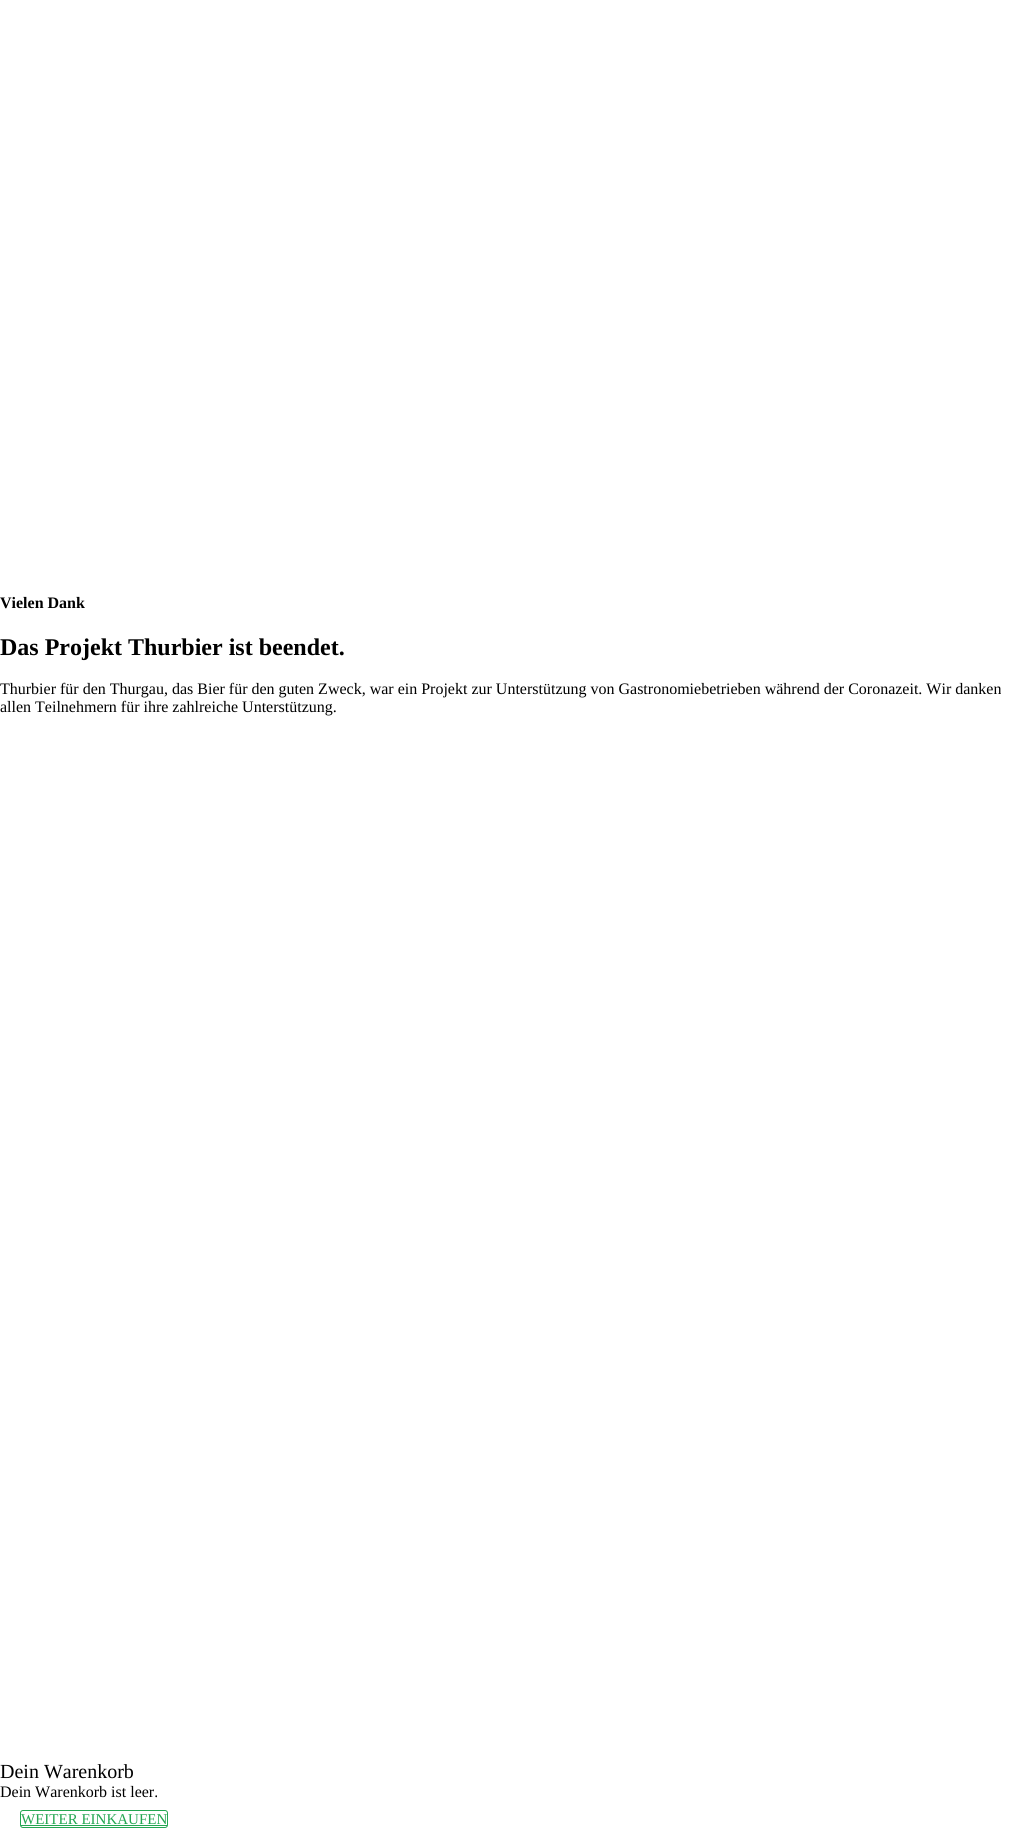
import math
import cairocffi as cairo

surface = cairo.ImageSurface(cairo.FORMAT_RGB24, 1029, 1848)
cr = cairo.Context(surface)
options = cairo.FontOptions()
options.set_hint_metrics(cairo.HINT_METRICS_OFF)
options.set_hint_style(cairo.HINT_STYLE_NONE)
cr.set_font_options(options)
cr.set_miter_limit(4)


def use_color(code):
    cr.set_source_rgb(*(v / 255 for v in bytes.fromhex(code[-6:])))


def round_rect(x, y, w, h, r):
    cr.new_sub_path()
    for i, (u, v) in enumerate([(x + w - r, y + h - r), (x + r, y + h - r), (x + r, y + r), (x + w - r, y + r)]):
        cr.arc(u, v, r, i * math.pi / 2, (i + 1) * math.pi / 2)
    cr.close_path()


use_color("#ffffff")
cr.paint()
cr.select_font_face("Liberation Serif", cairo.FONT_SLANT_NORMAL, cairo.FONT_WEIGHT_BOLD)
cr.set_font_size(16)
use_color("#000000")
cr.move_to(0, 608)
cr.show_text("Vielen Dank")
cr.set_font_size(24)
cr.move_to(0, 655)
cr.show_text("Das Projekt Thurbier ist beendet.")
cr.select_font_face("Liberation Serif")
cr.set_font_size(16)
cr.move_to(0, 694)
cr.show_text("Thurbier für den Thurgau, das Bier für den guten Zweck, war ein Projekt zur Unterstützung von Gastronomiebetrieben während der Coronazeit. Wir danken")
cr.move_to(0, 712)
cr.show_text("allen Teilnehmern für ihre zahlreiche Unterstützung.")
cr.set_font_size(20)
cr.move_to(0, 1778)
cr.show_text("Dein Warenkorb")
cr.set_font_size(16)
cr.move_to(0, 1797)
cr.show_text("Dein Warenkorb ist leer.")
round_rect(20.5, 1810.5, 147, 17, 2.5)
use_color("#23a652")
cr.set_line_width(1)
cr.stroke()
cr.set_font_size(15)
cr.move_to(21, 1824)
cr.show_text("WEITER EINKAUFEN")
cr.rectangle(21, 1825, 146, 1)
cr.fill()
surface.write_to_png("result.png")
